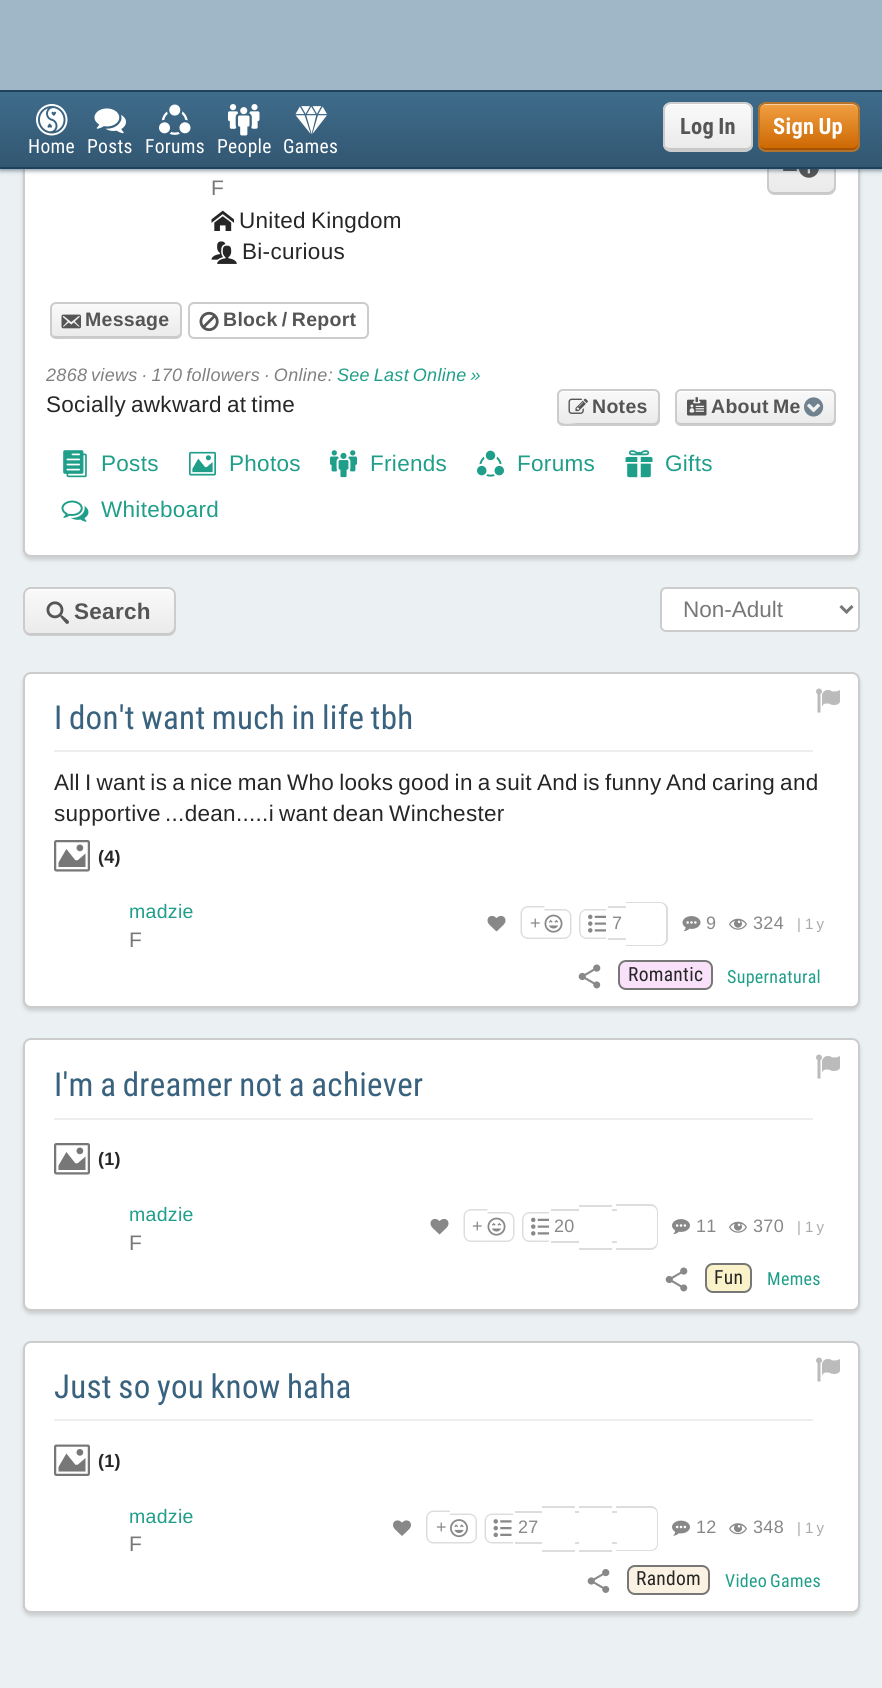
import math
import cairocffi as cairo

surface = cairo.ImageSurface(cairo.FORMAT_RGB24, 882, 1688)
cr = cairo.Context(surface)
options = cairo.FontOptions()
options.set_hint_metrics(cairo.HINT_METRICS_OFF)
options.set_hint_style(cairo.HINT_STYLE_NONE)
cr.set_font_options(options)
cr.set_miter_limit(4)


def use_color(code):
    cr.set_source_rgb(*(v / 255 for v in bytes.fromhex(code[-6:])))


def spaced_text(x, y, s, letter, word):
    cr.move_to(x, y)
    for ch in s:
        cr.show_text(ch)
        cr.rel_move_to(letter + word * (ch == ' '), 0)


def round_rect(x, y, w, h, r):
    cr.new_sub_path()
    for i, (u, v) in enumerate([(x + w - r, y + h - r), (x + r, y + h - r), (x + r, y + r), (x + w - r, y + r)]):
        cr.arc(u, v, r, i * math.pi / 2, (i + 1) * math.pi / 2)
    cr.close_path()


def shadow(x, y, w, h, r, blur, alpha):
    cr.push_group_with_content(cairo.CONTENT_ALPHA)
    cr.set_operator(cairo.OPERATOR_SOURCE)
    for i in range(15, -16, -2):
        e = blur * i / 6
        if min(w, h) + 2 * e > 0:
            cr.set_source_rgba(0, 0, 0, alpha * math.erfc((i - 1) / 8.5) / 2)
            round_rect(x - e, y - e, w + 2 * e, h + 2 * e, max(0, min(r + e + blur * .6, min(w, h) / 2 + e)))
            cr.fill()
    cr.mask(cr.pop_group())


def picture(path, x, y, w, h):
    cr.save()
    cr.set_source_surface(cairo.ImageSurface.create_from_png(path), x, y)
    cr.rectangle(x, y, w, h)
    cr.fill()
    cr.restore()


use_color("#ebf0f2")
cr.paint()
use_color("#808080")
shadow(23, 120, 837, 440, 8, 2, 0.3)
use_color("#ffffff")
round_rect(24, 118, 835, 438, 7)
cr.fill_preserve()
use_color("#cccccc")
cr.stroke()
cr.save()
round_rect(767, 126, 69, 69, 8)
cr.clip()
gradient = cairo.LinearGradient(801, 128, 801, 194)
gradient.add_color_stop_rgba(0, 0.98, 0.98, 0.98, 1)
gradient.add_color_stop_rgba(1, 0.918, 0.918, 0.918, 1)
cr.set_source(gradient)
cr.rectangle(767, 169, 69, 25)
cr.fill()
cr.restore()
use_color("#c7c7c7")
cr.new_path()
cr.move_to(768, 186)
cr.curve_to(768, 196, 775, 194, 783, 194)
cr.line_to(819, 194)
cr.curve_to(827, 194, 834, 196, 834, 186)
cr.curve_to(834, 189, 831, 192, 828, 192)
cr.line_to(774, 192)
cr.curve_to(771, 192, 768, 189, 768, 186)
cr.close_path()
cr.fill()
round_rect(768, 127, 67, 67, 7)
use_color("#cccccc")
cr.stroke()
picture("img6.png", 783, 169, 36, 9)
use_color("#264459")
shadow(0, 93, 882, 78, 0, 2, 0.5)
use_color("#9fb7c7")
cr.rectangle(0, 0, 882, 90)
cr.fill()
gradient = cairo.LinearGradient(441, 91, 441, 167)
gradient.add_color_stop_rgba(0, 0.247, 0.424, 0.549, 1)
gradient.add_color_stop_rgba(1, 0.196, 0.341, 0.443, 1)
cr.set_source(gradient)
cr.rectangle(0, 92, 882, 75)
cr.fill()
use_color("#1f425c")
cr.rectangle(0, 90, 882, 2)
cr.fill()
cr.rectangle(0, 167, 882, 2)
cr.fill()
cr.save()
round_rect(663, 102, 90, 50, 8)
cr.clip()
gradient = cairo.LinearGradient(708, 104, 708, 150)
gradient.add_color_stop_rgba(0, 0.98, 0.98, 0.98, 1)
gradient.add_color_stop_rgba(1, 0.918, 0.918, 0.918, 1)
cr.set_source(gradient)
cr.rectangle(663, 104, 90, 46)
cr.fill()
cr.restore()
use_color("#c7c7c7")
cr.new_path()
cr.move_to(665, 146)
cr.curve_to(666, 148, 668, 150, 671, 150)
cr.line_to(746, 150)
cr.curve_to(749, 150, 752, 147, 752, 144)
cr.line_to(752, 142)
cr.curve_to(752, 146, 749, 148, 746, 148)
cr.line_to(670, 148)
cr.curve_to(668, 148, 666, 147, 665, 146)
cr.close_path()
cr.fill()
use_color("#ffffff")
cr.new_path()
cr.move_to(670, 105)
cr.line_to(746, 105)
cr.curve_to(749, 105, 752, 108, 752, 111)
cr.line_to(752, 110)
cr.curve_to(752, 107, 749, 104, 746, 104)
cr.line_to(671, 104)
cr.curve_to(669, 104, 667, 105, 666, 107)
cr.curve_to(667, 106, 669, 105, 670, 105)
cr.close_path()
cr.fill()
round_rect(664, 103, 88, 48, 7)
use_color("#cccccc")
cr.stroke()
cr.select_font_face("Roboto Condensed", cairo.FONT_SLANT_NORMAL, cairo.FONT_WEIGHT_BOLD)
cr.set_font_size(22.5)
use_color("#555555")
spaced_text(680, 134, "Log In", 0.3, -1.5)
cr.save()
round_rect(758, 102, 102, 50, 8)
cr.clip()
gradient = cairo.LinearGradient(809, 104, 809, 150)
gradient.add_color_stop_rgba(0, 0.941, 0.624, 0.259, 1)
gradient.add_color_stop_rgba(1, 0.8, 0.4, 0, 1)
cr.set_source(gradient)
cr.rectangle(758, 104, 102, 46)
cr.fill()
cr.restore()
cr.set_source_rgba(0, 0, 0, 0.2)
cr.new_path()
cr.move_to(759, 142)
cr.curve_to(759, 154, 770, 150, 780, 150)
cr.line_to(838, 150)
cr.curve_to(847, 150, 858, 154, 858, 142)
cr.curve_to(858, 146, 855, 148, 852, 148)
cr.line_to(765, 148)
cr.curve_to(762, 148, 759, 146, 759, 142)
cr.close_path()
cr.fill()
use_color("#f7cea0")
cr.new_path()
cr.move_to(765, 105)
cr.line_to(852, 105)
cr.curve_to(855, 105, 858, 108, 858, 111)
cr.curve_to(858, 101, 844, 104, 838, 104)
cr.line_to(780, 104)
cr.curve_to(773, 104, 759, 101, 759, 111)
cr.curve_to(759, 108, 762, 105, 765, 105)
cr.close_path()
cr.fill()
round_rect(759, 103, 100, 48, 7)
use_color("#b2742c")
cr.stroke()
use_color("#ffffff")
spaced_text(773, 134, "Sign Up", 0.3, -1.5)
picture("img1.png", 36, 104, 32, 32)
cr.select_font_face("Roboto Condensed")
cr.set_font_size(19.5)
spaced_text(28, 153, "Home", 0.3, 0)
picture("img2.png", 94, 108, 32, 26)
spaced_text(87, 153, "Posts", 0.3, 0)
picture("img3.png", 159, 104, 32, 31)
spaced_text(145, 153, "Forums", 0.3, 0)
picture("img4.png", 228, 104, 32, 32)
spaced_text(217, 153, "People", 0.3, 0)
picture("img5.png", 295, 106, 32, 28)
spaced_text(283, 153, "Games", 0.3, 0)
cr.select_font_face("Liberation Sans")
cr.set_font_size(21)
use_color("#777777")
spaced_text(211, 195, "F", 0.3, 0)
picture("img7.png", 211, 210, 23, 21)
cr.set_font_size(22.5)
use_color("#262626")
spaced_text(239, 228, "United Kingdom", 0.3, -1.5)
picture("img8.png", 211, 241, 26, 23)
spaced_text(242, 259, "Bi-curious", 0.3, 0)
cr.save()
round_rect(50, 302, 132, 37, 6)
cr.clip()
gradient = cairo.LinearGradient(116, 303, 116, 338)
gradient.add_color_stop_rgba(0, 0.98, 0.98, 0.98, 1)
gradient.add_color_stop_rgba(1, 0.918, 0.918, 0.918, 1)
cr.set_source(gradient)
cr.rectangle(50, 303, 132, 35)
cr.fill()
cr.restore()
cr.set_source_rgba(0, 0, 0, 0.15)
cr.new_path()
cr.move_to(51, 332)
cr.curve_to(51, 343, 72, 338, 76, 338)
cr.line_to(155, 338)
cr.curve_to(159, 338, 180, 343, 180, 332)
cr.curve_to(180, 334, 178, 336, 176, 336)
cr.line_to(55, 336)
cr.line_to(52, 335)
cr.close_path()
cr.fill()
use_color("#ffffff")
cr.new_path()
cr.move_to(56, 304)
cr.line_to(176, 304)
cr.curve_to(178, 304, 180, 307, 180, 309)
cr.curve_to(180, 298, 159, 303, 155, 303)
cr.line_to(76, 303)
cr.curve_to(72, 303, 51, 298, 51, 309)
cr.curve_to(51, 307, 53, 304, 56, 304)
cr.close_path()
cr.fill()
round_rect(51, 303, 130, 35, 5)
use_color("#cccccc")
cr.stroke()
picture("img9.png", 61, 314, 20, 15)
cr.select_font_face("Liberation Sans", cairo.FONT_SLANT_NORMAL, cairo.FONT_WEIGHT_BOLD)
cr.set_font_size(19.5)
use_color("#555555")
spaced_text(85, 326, "Message", 0.3, 0)
round_rect(189, 303, 179, 35, 5)
use_color("#cccccc")
cr.stroke()
picture("img10.png", 199, 311, 20, 21)
use_color("#555555")
spaced_text(223, 326, "Block / Report", 0.3, -1.5)
cr.select_font_face("Liberation Sans", cairo.FONT_SLANT_ITALIC)
cr.set_font_size(18)
use_color("#808080")
spaced_text(46, 381, "2868 views · 170 followers · Online:", 0.3, -1.5)
use_color("#1f9e89")
spaced_text(337, 381, "See Last Online »", 0.3, -1.5)
cr.select_font_face("Liberation Sans")
cr.set_font_size(22.5)
use_color("#262626")
spaced_text(46, 412, "Socially awkward at time", 0.3, -1.5)
cr.save()
round_rect(557, 389, 103, 37, 6)
cr.clip()
gradient = cairo.LinearGradient(608, 390, 608, 425)
gradient.add_color_stop_rgba(0, 0.98, 0.98, 0.98, 1)
gradient.add_color_stop_rgba(1, 0.918, 0.918, 0.918, 1)
cr.set_source(gradient)
cr.rectangle(557, 390, 103, 35)
cr.fill()
cr.restore()
cr.set_source_rgba(0, 0, 0, 0.15)
cr.new_path()
cr.move_to(558, 418)
cr.curve_to(558, 427, 574, 423, 577, 423)
cr.line_to(639, 423)
cr.curve_to(658, 423, 658, 426, 658, 410)
cr.line_to(658, 392)
cr.curve_to(659, 393, 659, 394, 659, 395)
cr.line_to(659, 420)
cr.curve_to(659, 423, 657, 425, 654, 425)
cr.line_to(563, 425)
cr.curve_to(560, 425, 558, 423, 558, 420)
cr.close_path()
cr.fill()
use_color("#ffffff")
cr.new_path()
cr.move_to(562, 392)
cr.line_to(639, 392)
cr.curve_to(658, 392, 658, 388, 658, 405)
cr.line_to(658, 423)
cr.curve_to(659, 422, 659, 421, 659, 420)
cr.line_to(659, 395)
cr.curve_to(659, 392, 657, 390, 654, 390)
cr.line_to(563, 390)
cr.curve_to(560, 390, 558, 392, 558, 395)
cr.line_to(558, 396)
cr.curve_to(558, 394, 560, 392, 562, 392)
cr.close_path()
cr.fill()
round_rect(558, 390, 101, 35, 5)
use_color("#cccccc")
cr.stroke()
picture("img11.png", 568, 398, 20, 16)
cr.select_font_face("Liberation Sans", cairo.FONT_SLANT_NORMAL, cairo.FONT_WEIGHT_BOLD)
cr.set_font_size(19.5)
use_color("#555555")
spaced_text(592, 413, "Notes", 0.3, 0)
cr.save()
round_rect(675, 389, 161, 37, 6)
cr.clip()
gradient = cairo.LinearGradient(755, 390, 755, 425)
gradient.add_color_stop_rgba(0, 0.98, 0.98, 0.98, 1)
gradient.add_color_stop_rgba(1, 0.918, 0.918, 0.918, 1)
cr.set_source(gradient)
cr.rectangle(675, 390, 161, 35)
cr.fill()
cr.restore()
use_color("#c7c7c7")
cr.new_path()
cr.move_to(677, 421)
cr.curve_to(678, 423, 680, 425, 682, 425)
cr.line_to(829, 425)
cr.curve_to(832, 425, 834, 423, 834, 420)
cr.line_to(834, 418)
cr.curve_to(834, 421, 832, 423, 830, 423)
cr.line_to(681, 423)
cr.curve_to(680, 423, 678, 422, 677, 421)
cr.close_path()
cr.fill()
use_color("#ffffff")
cr.new_path()
cr.move_to(681, 392)
cr.line_to(830, 392)
cr.curve_to(832, 392, 834, 394, 834, 396)
cr.line_to(834, 395)
cr.curve_to(834, 392, 832, 390, 829, 390)
cr.line_to(682, 390)
cr.curve_to(680, 390, 678, 392, 677, 394)
cr.curve_to(678, 393, 680, 392, 681, 392)
cr.close_path()
cr.fill()
round_rect(676, 390, 159, 35, 5)
use_color("#cccccc")
cr.stroke()
picture("img12.png", 687, 397, 20, 19)
use_color("#555555")
spaced_text(711, 413, "About Me", 0.3, -1.5)
picture("img13.png", 804, 397, 20, 20)
picture("img14.png", 63, 450, 24, 28)
cr.select_font_face("Liberation Sans")
cr.set_font_size(22.5)
use_color("#1f9e89")
spaced_text(101, 471, "Posts", 0.3, 0)
picture("img15.png", 189, 451, 27, 25)
spaced_text(229, 471, "Photos", 0.3, 0)
picture("img16.png", 330, 450, 27, 28)
spaced_text(370, 471, "Friends", 0.3, 0)
picture("img17.png", 477, 450, 27, 27)
spaced_text(517, 471, "Forums", 0.3, 0)
picture("img18.png", 625, 450, 28, 28)
spaced_text(665, 471, "Gifts", 0.3, 0)
picture("img19.png", 61, 500, 28, 22)
spaced_text(101, 517, "Whiteboard", 0.3, 0)
cr.save()
round_rect(23, 587, 153, 49, 8)
cr.clip()
gradient = cairo.LinearGradient(99, 588, 99, 635)
gradient.add_color_stop_rgba(0, 0.98, 0.98, 0.98, 1)
gradient.add_color_stop_rgba(1, 0.918, 0.918, 0.918, 1)
cr.set_source(gradient)
cr.rectangle(23, 588, 153, 47)
cr.fill()
cr.restore()
use_color("#c7c7c7")
cr.new_path()
cr.move_to(24, 627)
cr.line_to(24, 629)
cr.curve_to(24, 632, 27, 635, 30, 635)
cr.line_to(168, 635)
cr.curve_to(171, 635, 174, 632, 174, 629)
cr.line_to(174, 627)
cr.curve_to(174, 630, 171, 633, 168, 633)
cr.line_to(30, 633)
cr.curve_to(27, 633, 24, 630, 24, 627)
cr.close_path()
cr.fill()
use_color("#ffffff")
cr.new_path()
cr.move_to(30, 590)
cr.line_to(168, 590)
cr.curve_to(171, 590, 174, 592, 174, 596)
cr.line_to(174, 594)
cr.curve_to(174, 591, 171, 588, 168, 588)
cr.line_to(30, 588)
cr.curve_to(27, 588, 24, 591, 24, 594)
cr.line_to(24, 596)
cr.curve_to(24, 592, 27, 590, 30, 590)
cr.close_path()
cr.fill()
round_rect(24, 588, 151, 47, 7)
use_color("#cccccc")
cr.stroke()
picture("img20.png", 46, 601, 23, 23)
cr.select_font_face("Liberation Sans", cairo.FONT_SLANT_NORMAL, cairo.FONT_WEIGHT_BOLD)
use_color("#555555")
spaced_text(74, 619, "Search", 0.3, 0)
use_color("#ffffff")
round_rect(661, 588, 198, 43, 5)
cr.fill_preserve()
use_color("#cccccc")
cr.stroke()
cr.new_path()
cr.move_to(840.5, 606)
cr.line_to(846.5, 612)
cr.line_to(852.5, 606)
use_color("#777777")
cr.set_line_width(3)
cr.stroke()
cr.select_font_face("Liberation Sans")
cr.move_to(683, 617)
cr.show_text("Non-Adult")
use_color("#808080")
shadow(23, 675, 837, 336, 8, 2, 0.3)
use_color("#ffffff")
round_rect(24, 673, 835, 334, 7)
cr.fill_preserve()
use_color("#cccccc")
cr.set_line_width(2)
cr.stroke()
use_color("#eeeeee")
cr.rectangle(54, 750, 759, 2)
cr.fill()
cr.select_font_face("Roboto Condensed")
cr.set_font_size(33)
use_color("#39627f")
spaced_text(54, 729, "I don't want much in life tbh", 0.3, -1.5)
cr.select_font_face("Liberation Sans")
cr.set_font_size(22.5)
use_color("#262626")
spaced_text(54, 790, "All I want is a nice man", 0.3, -1.5)
spaced_text(287, 790, "Who looks good in a suit", 0.3, -1.5)
spaced_text(537, 790, "And is funny", 0.3, -1.5)
spaced_text(666, 790, "And caring and", 0.3, -1.5)
spaced_text(54, 821, "supportive", 0.3, 0)
spaced_text(165, 821, "...dean.....i want dean Winchester", 0.3, -1.5)
picture("img21.png", 54, 840, 36, 32)
cr.select_font_face("Liberation Sans", cairo.FONT_SLANT_NORMAL, cairo.FONT_WEIGHT_BOLD)
cr.set_font_size(18)
spaced_text(98, 863, "(4)", 0.3, 0)
cr.select_font_face("Liberation Sans")
cr.set_font_size(19.5)
use_color("#1f9e89")
spaced_text(129, 918, "madzie", 0.3, 0)
cr.set_font_size(21)
use_color("#777777")
spaced_text(129, 947, "F", 0.3, 0)
picture("img22.png", 816, 688, 24, 25)
picture("img23.png", 487, 915, 19, 17)
use_color("#dddddd")
cr.set_fill_rule(cairo.FILL_RULE_EVEN_ODD)
cr.new_path()
cr.move_to(528, 906)
cr.line_to(544.5, 906)
cr.line_to(544.5, 939)
cr.line_to(528, 939)
cr.curve_to(524, 939, 520.5, 935.5, 520.5, 931.5)
cr.line_to(520.5, 913.5)
cr.curve_to(520.5, 909.5, 524, 906, 528, 906)
cr.close_path()
cr.move_to(528, 907.5)
cr.line_to(544.5, 907.5)
cr.line_to(544.5, 937.5)
cr.line_to(528, 937.5)
cr.curve_to(524.5, 937.5, 522, 935, 522, 931.5)
cr.line_to(522, 913.5)
cr.curve_to(522, 910, 524.5, 907.5, 528, 907.5)
cr.close_path()
cr.fill()
cr.new_path()
cr.move_to(544.5, 909)
cr.line_to(564, 909)
cr.curve_to(568, 909, 571.5, 912.5, 571.5, 916.5)
cr.line_to(571.5, 931.5)
cr.curve_to(571.5, 935.5, 568, 939, 564, 939)
cr.line_to(544.5, 939)
cr.close_path()
cr.move_to(544.5, 910.5)
cr.line_to(564, 910.5)
cr.curve_to(567.5, 910.5, 570, 913, 570, 916.5)
cr.line_to(570, 931.5)
cr.curve_to(570, 935, 567.5, 937.5, 564, 937.5)
cr.line_to(544.5, 937.5)
cr.close_path()
cr.fill()
cr.set_font_size(18)
use_color("#888888")
spaced_text(530, 929, "+", 0.3, 0)
picture("img24.png", 544, 914, 19, 19)
use_color("#dddddd")
cr.new_path()
cr.move_to(586.5, 909)
cr.line_to(606, 909)
cr.line_to(606, 939)
cr.line_to(586.5, 939)
cr.curve_to(582.5, 939, 579, 935.5, 579, 931.5)
cr.line_to(579, 916.5)
cr.curve_to(579, 912.5, 582.5, 909, 586.5, 909)
cr.close_path()
cr.move_to(586.5, 910.5)
cr.line_to(606, 910.5)
cr.line_to(606, 937.5)
cr.line_to(586.5, 937.5)
cr.curve_to(583, 937.5, 580.5, 935, 580.5, 931.5)
cr.line_to(580.5, 916.5)
cr.curve_to(580.5, 913, 583, 910.5, 586.5, 910.5)
cr.close_path()
cr.fill()
cr.rectangle(608, 906, 18, 2)
cr.fill()
cr.rectangle(608, 938, 18, 2)
cr.fill()
cr.new_path()
cr.move_to(626, 902)
cr.line_to(660, 902)
cr.curve_to(664, 902, 668, 905, 668, 909)
cr.line_to(668, 939)
cr.curve_to(668, 943, 664, 946, 660, 946)
cr.line_to(626, 946)
cr.close_path()
cr.move_to(626, 903)
cr.line_to(660, 903)
cr.curve_to(663, 903, 666, 906, 666, 909)
cr.line_to(666, 939)
cr.curve_to(666, 942, 663, 945, 660, 945)
cr.line_to(626, 945)
cr.close_path()
cr.fill()
picture("img25.png", 588, 914, 18, 19)
use_color("#888888")
spaced_text(612, 929, "7", 0.3, 0)
picture("img26.png", 682, 916, 19, 16)
spaced_text(706, 929, "9", 0.3, 0)
picture("img27.png", 729, 918, 18, 12)
spaced_text(753, 929, "324", 0.3, 0)
cr.set_font_size(15)
use_color("#aaaaaa")
spaced_text(797, 929, "|", 0.3, 0)
spaced_text(805, 929, "1 y", 0.3, -1.5)
picture("img28.png", 578, 964, 23, 25)
use_color("#fae1fa")
round_rect(619, 961, 93, 28, 7)
cr.fill_preserve()
use_color("#777777")
cr.stroke()
cr.select_font_face("Roboto Condensed")
cr.set_font_size(19.5)
use_color("#262626")
spaced_text(628, 981, "Romantic", 0.3, 0)
cr.set_font_size(18)
use_color("#1f9e89")
spaced_text(727, 983, "Supernatural", 0.3, 0)
use_color("#808080")
shadow(23, 1041, 837, 273, 8, 2, 0.3)
use_color("#ffffff")
round_rect(24, 1039, 835, 271, 7)
cr.fill_preserve()
use_color("#cccccc")
cr.stroke()
use_color("#eeeeee")
cr.rectangle(54, 1118, 759, 2)
cr.fill()
cr.set_font_size(33)
use_color("#39627f")
spaced_text(54, 1096, "I'm a dreamer not a achiever", 0.3, -1.5)
picture("img21.png", 54, 1143, 36, 32)
cr.select_font_face("Liberation Sans", cairo.FONT_SLANT_NORMAL, cairo.FONT_WEIGHT_BOLD)
cr.set_font_size(18)
use_color("#262626")
spaced_text(98, 1165, "(1)", 0.3, 0)
cr.select_font_face("Liberation Sans")
cr.set_font_size(19.5)
use_color("#1f9e89")
spaced_text(129, 1221, "madzie", 0.3, 0)
cr.set_font_size(21)
use_color("#777777")
spaced_text(129, 1250, "F", 0.3, 0)
picture("img22.png", 816, 1054, 24, 25)
picture("img23.png", 430, 1218, 19, 17)
use_color("#dddddd")
cr.new_path()
cr.move_to(471, 1209)
cr.line_to(487.5, 1209)
cr.line_to(487.5, 1242)
cr.line_to(471, 1242)
cr.curve_to(467, 1242, 463.5, 1238.5, 463.5, 1234.5)
cr.line_to(463.5, 1216.5)
cr.curve_to(463.5, 1212.5, 467, 1209, 471, 1209)
cr.close_path()
cr.move_to(471, 1210.5)
cr.line_to(487.5, 1210.5)
cr.line_to(487.5, 1240.5)
cr.line_to(471, 1240.5)
cr.curve_to(467.5, 1240.5, 465, 1238, 465, 1234.5)
cr.line_to(465, 1216.5)
cr.curve_to(465, 1213, 467.5, 1210.5, 471, 1210.5)
cr.close_path()
cr.fill()
cr.new_path()
cr.move_to(487.5, 1212)
cr.line_to(507, 1212)
cr.curve_to(511, 1212, 514.5, 1215.5, 514.5, 1219.5)
cr.line_to(514.5, 1234.5)
cr.curve_to(514.5, 1238.5, 511, 1242, 507, 1242)
cr.line_to(487.5, 1242)
cr.close_path()
cr.move_to(487.5, 1213.5)
cr.line_to(507, 1213.5)
cr.curve_to(510.5, 1213.5, 513, 1216, 513, 1219.5)
cr.line_to(513, 1234.5)
cr.curve_to(513, 1238, 510.5, 1240.5, 507, 1240.5)
cr.line_to(487.5, 1240.5)
cr.close_path()
cr.fill()
cr.set_font_size(18)
use_color("#888888")
spaced_text(472, 1232, "+", 0.3, 0)
picture("img24.png", 487, 1217, 19, 19)
use_color("#dddddd")
cr.new_path()
cr.move_to(529.5, 1212)
cr.line_to(549, 1212)
cr.line_to(549, 1242)
cr.line_to(529.5, 1242)
cr.curve_to(525.5, 1242, 522, 1238.5, 522, 1234.5)
cr.line_to(522, 1219.5)
cr.curve_to(522, 1215.5, 525.5, 1212, 529.5, 1212)
cr.close_path()
cr.move_to(529.5, 1213.5)
cr.line_to(549, 1213.5)
cr.line_to(549, 1240.5)
cr.line_to(529.5, 1240.5)
cr.curve_to(526, 1240.5, 523.5, 1238, 523.5, 1234.5)
cr.line_to(523.5, 1219.5)
cr.curve_to(523.5, 1216, 526, 1213.5, 529.5, 1213.5)
cr.close_path()
cr.fill()
cr.rectangle(551, 1209, 28, 2)
cr.fill()
cr.rectangle(551, 1241, 28, 2)
cr.fill()
cr.rectangle(579, 1205, 33, 2)
cr.fill()
cr.rectangle(579, 1248, 33, 2)
cr.fill()
cr.rectangle(612, 1209, 5, 2)
cr.fill()
cr.rectangle(612, 1241, 5, 2)
cr.fill()
cr.new_path()
cr.move_to(616, 1204)
cr.line_to(651, 1204)
cr.curve_to(655, 1204, 658, 1208, 658, 1212)
cr.line_to(658, 1242)
cr.curve_to(658, 1246, 655, 1250, 651, 1250)
cr.line_to(616, 1250)
cr.close_path()
cr.move_to(616, 1206)
cr.line_to(651, 1206)
cr.curve_to(654, 1206, 657, 1209, 657, 1212)
cr.line_to(657, 1242)
cr.curve_to(657, 1245, 654, 1248, 651, 1248)
cr.line_to(616, 1248)
cr.close_path()
cr.fill()
picture("img25.png", 531, 1217, 18, 19)
use_color("#888888")
spaced_text(554, 1232, "20", 0.3, 0)
picture("img29.png", 672, 1219, 18, 16)
spaced_text(696, 1232, "11", 0.3, 0)
picture("img27.png", 729, 1221, 18, 12)
spaced_text(753, 1232, "370", 0.3, 0)
cr.set_font_size(15)
use_color("#aaaaaa")
spaced_text(797, 1232, "|", 0.3, 0)
spaced_text(805, 1232, "1 y", 0.3, -1.5)
picture("img28.png", 665, 1267, 23, 25)
use_color("#faf2c8")
round_rect(706, 1264, 45, 28, 7)
cr.fill_preserve()
use_color("#777777")
cr.stroke()
cr.select_font_face("Roboto Condensed")
cr.set_font_size(19.5)
use_color("#262626")
spaced_text(714, 1284, "Fun", 0.3, 0)
cr.set_font_size(18)
use_color("#1f9e89")
spaced_text(767, 1285, "Memes", 0.3, 0)
use_color("#808080")
shadow(23, 1344, 837, 272, 8, 2, 0.3)
use_color("#ffffff")
round_rect(24, 1342, 835, 270, 7)
cr.fill_preserve()
use_color("#cccccc")
cr.stroke()
use_color("#eeeeee")
cr.rectangle(54, 1419, 759, 2)
cr.fill()
cr.set_font_size(33)
use_color("#39627f")
spaced_text(54, 1398, "Just so you know haha", 0.3, -1.5)
picture("img30.png", 54, 1444, 36, 32)
cr.select_font_face("Liberation Sans", cairo.FONT_SLANT_NORMAL, cairo.FONT_WEIGHT_BOLD)
cr.set_font_size(18)
use_color("#262626")
spaced_text(98, 1467, "(1)", 0.3, 0)
cr.select_font_face("Liberation Sans")
cr.set_font_size(19.5)
use_color("#1f9e89")
spaced_text(129, 1523, "madzie", 0.3, 0)
cr.set_font_size(21)
use_color("#777777")
spaced_text(129, 1551, "F", 0.3, 0)
picture("img22.png", 816, 1357, 24, 25)
picture("img31.png", 393, 1520, 18, 16)
use_color("#dddddd")
cr.new_path()
cr.move_to(433.5, 1510.5)
cr.line_to(450, 1510.5)
cr.line_to(450, 1543.5)
cr.line_to(433.5, 1543.5)
cr.curve_to(429.5, 1543.5, 426, 1540, 426, 1536)
cr.line_to(426, 1518)
cr.curve_to(426, 1514, 429.5, 1510.5, 433.5, 1510.5)
cr.close_path()
cr.move_to(433.5, 1512)
cr.line_to(450, 1512)
cr.line_to(450, 1542)
cr.line_to(433.5, 1542)
cr.curve_to(430, 1542, 427.5, 1539.5, 427.5, 1536)
cr.line_to(427.5, 1518)
cr.curve_to(427.5, 1514.5, 430, 1512, 433.5, 1512)
cr.close_path()
cr.move_to(450, 1513.5)
cr.line_to(469.5, 1513.5)
cr.curve_to(473.5, 1513.5, 477, 1517, 477, 1521)
cr.line_to(477, 1536)
cr.curve_to(477, 1540, 473.5, 1543.5, 469.5, 1543.5)
cr.line_to(450, 1543.5)
cr.close_path()
cr.move_to(450, 1515)
cr.line_to(469.5, 1515)
cr.curve_to(473, 1515, 475.5, 1517.5, 475.5, 1521)
cr.line_to(475.5, 1536)
cr.curve_to(475.5, 1539.5, 473, 1542, 469.5, 1542)
cr.line_to(450, 1542)
cr.close_path()
cr.fill()
cr.set_font_size(18)
use_color("#888888")
spaced_text(436, 1533, "+", 0.3, 0)
picture("img32.png", 450, 1519, 18, 19)
use_color("#dddddd")
cr.new_path()
cr.move_to(492, 1513.5)
cr.line_to(513, 1513.5)
cr.line_to(513, 1543.5)
cr.line_to(492, 1543.5)
cr.curve_to(488, 1543.5, 484.5, 1540, 484.5, 1536)
cr.line_to(484.5, 1521)
cr.curve_to(484.5, 1517, 488, 1513.5, 492, 1513.5)
cr.close_path()
cr.move_to(492, 1515)
cr.line_to(513, 1515)
cr.line_to(513, 1542)
cr.line_to(492, 1542)
cr.curve_to(488.5, 1542, 486, 1539.5, 486, 1536)
cr.line_to(486, 1521)
cr.curve_to(486, 1517.5, 488.5, 1515, 492, 1515)
cr.close_path()
cr.fill()
cr.rectangle(515, 1511, 27, 2)
cr.fill()
cr.rectangle(515, 1542, 27, 2)
cr.fill()
cr.rectangle(542, 1506, 33, 2)
cr.fill()
cr.rectangle(542, 1550, 33, 2)
cr.fill()
cr.rectangle(575, 1511, 5, 2)
cr.fill()
cr.rectangle(575, 1542, 5, 2)
cr.fill()
use_color("#ffffff")
cr.rectangle(579, 1511, 1, 33)
cr.fill()
use_color("#dddddd")
cr.rectangle(579, 1506, 33, 2)
cr.fill()
cr.rectangle(579, 1550, 33, 2)
cr.fill()
cr.rectangle(612, 1511, 5, 2)
cr.fill()
cr.rectangle(612, 1542, 5, 2)
cr.fill()
cr.new_path()
cr.move_to(616, 1506)
cr.line_to(651, 1506)
cr.curve_to(655, 1506, 658, 1509, 658, 1514)
cr.line_to(658, 1544)
cr.curve_to(658, 1548, 655, 1551, 651, 1551)
cr.line_to(616, 1551)
cr.close_path()
cr.move_to(616, 1508)
cr.line_to(651, 1508)
cr.curve_to(654, 1508, 657, 1510, 657, 1514)
cr.line_to(657, 1544)
cr.curve_to(657, 1547, 654, 1550, 651, 1550)
cr.line_to(616, 1550)
cr.close_path()
cr.fill()
picture("img33.png", 493, 1519, 19, 19)
use_color("#888888")
spaced_text(518, 1533, "27", 0.3, 0)
picture("img34.png", 672, 1520, 18, 16)
spaced_text(696, 1533, "12", 0.3, 0)
picture("img35.png", 729, 1523, 18, 12)
spaced_text(753, 1533, "348", 0.3, 0)
cr.set_font_size(15)
use_color("#aaaaaa")
spaced_text(797, 1533, "|", 0.3, 0)
spaced_text(805, 1533, "1 y", 0.3, -1.5)
picture("img36.png", 587, 1569, 23, 24)
use_color("#fcf2e3")
round_rect(628, 1566, 81, 28, 7)
cr.fill_preserve()
use_color("#777777")
cr.stroke()
cr.select_font_face("Roboto Condensed")
cr.set_font_size(19.5)
use_color("#262626")
spaced_text(636, 1585, "Random", 0.3, 0)
cr.set_font_size(18)
use_color("#1f9e89")
spaced_text(725, 1587, "Video Games", 0.3, -1.5)
surface.write_to_png("result.png")
